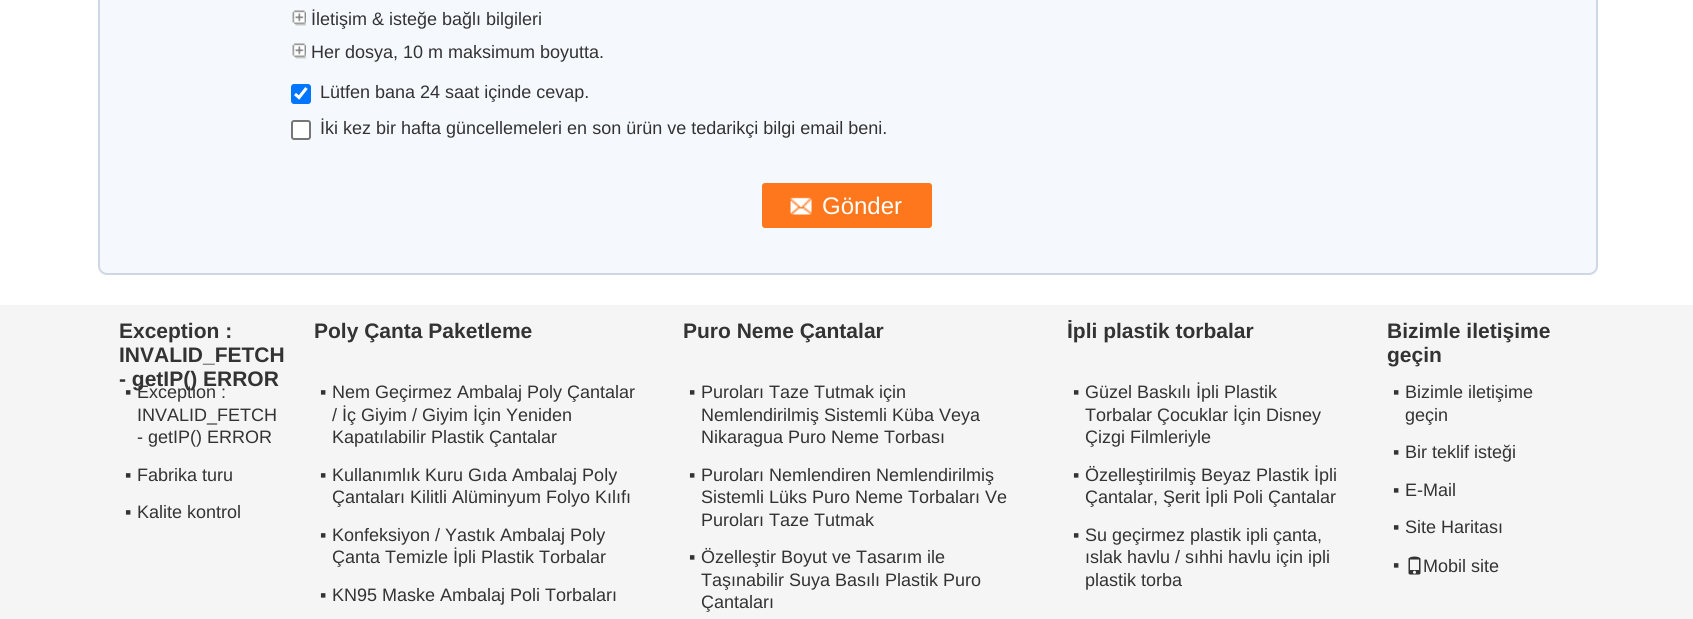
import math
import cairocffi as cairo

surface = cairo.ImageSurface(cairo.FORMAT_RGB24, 1693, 619)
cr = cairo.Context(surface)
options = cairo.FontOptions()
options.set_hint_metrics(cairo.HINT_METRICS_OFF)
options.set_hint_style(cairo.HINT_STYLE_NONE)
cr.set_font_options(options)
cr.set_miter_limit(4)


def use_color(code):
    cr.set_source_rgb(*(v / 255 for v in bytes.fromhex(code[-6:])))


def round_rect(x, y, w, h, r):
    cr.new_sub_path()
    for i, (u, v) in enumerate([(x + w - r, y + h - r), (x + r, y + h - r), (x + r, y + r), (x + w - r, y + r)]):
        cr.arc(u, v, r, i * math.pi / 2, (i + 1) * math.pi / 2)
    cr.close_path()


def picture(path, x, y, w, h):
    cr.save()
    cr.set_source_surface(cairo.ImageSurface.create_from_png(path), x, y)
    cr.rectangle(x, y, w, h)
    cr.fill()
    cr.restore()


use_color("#ffffff")
cr.paint()
use_color("#f5f8fd")
round_rect(99, -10, 1498, 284, 8)
cr.fill_preserve()
use_color("#cfd7e4")
cr.stroke()
picture("img1.png", 292, 10, 14, 16)
cr.select_font_face("Liberation Sans")
cr.set_font_size(18)
use_color("#333333")
cr.move_to(311, 25)
cr.show_text("İletişim & isteğe bağlı bilgileri")
picture("img1.png", 292, 43, 14, 16)
cr.move_to(311, 58)
cr.show_text("Her dosya, 10 m maksimum boyutta.")
use_color("#0075ff")
round_rect(291, 84, 20, 20, 3)
cr.fill()
cr.new_path()
cr.move_to(295, 94)
cr.line_to(299, 97.5)
cr.line_to(306.5, 88)
use_color("#ffffff")
cr.set_line_width(3.1)
cr.stroke()
use_color("#333333")
cr.move_to(320, 98)
cr.show_text("Lütfen bana 24 saat içinde cevap.")
use_color("#ffffff")
round_rect(292, 121, 18, 18, 2)
cr.fill_preserve()
use_color("#767676")
cr.set_line_width(2)
cr.stroke()
use_color("#333333")
cr.move_to(320, 134)
cr.show_text("İki kez bir hafta güncellemeleri en son ürün ve tedarikçi bilgi email beni.")
use_color("#ff771c")
round_rect(762, 183, 170, 45, 3)
cr.fill()
picture("img2.png", 790, 197, 22, 18)
cr.set_font_size(24)
use_color("#ffffff")
cr.move_to(822, 214)
cr.show_text("Gönder")
use_color("#f5f5f5")
cr.rectangle(0, 305, 1693, 314)
cr.fill()
cr.select_font_face("Liberation Sans", cairo.FONT_SLANT_NORMAL, cairo.FONT_WEIGHT_BOLD)
cr.set_font_size(21)
use_color("#333333")
cr.move_to(119, 338)
cr.show_text("Exception :")
cr.move_to(119, 362)
cr.show_text("INVALID_FETCH")
cr.move_to(119, 386)
cr.show_text("- getIP() ERROR")
cr.select_font_face("Liberation Sans")
cr.set_font_size(18)
cr.move_to(125, 398)
cr.show_text("▪")
cr.move_to(137, 398)
cr.show_text("Exception :")
cr.move_to(137, 421)
cr.show_text("INVALID_FETCH")
cr.move_to(137, 443)
cr.show_text("- getIP() ERROR")
cr.move_to(125, 481)
cr.show_text("▪")
cr.move_to(137, 481)
cr.show_text("Fabrika turu")
cr.move_to(125, 518)
cr.show_text("▪")
cr.move_to(137, 518)
cr.show_text("Kalite kontrol")
cr.select_font_face("Liberation Sans", cairo.FONT_SLANT_NORMAL, cairo.FONT_WEIGHT_BOLD)
cr.set_font_size(21)
cr.move_to(314, 338)
cr.show_text("Poly Çanta Paketleme")
cr.select_font_face("Liberation Sans")
cr.set_font_size(18)
cr.move_to(320, 398)
cr.show_text("▪")
cr.move_to(332, 398)
cr.show_text("Nem Geçirmez Ambalaj Poly Çantalar")
cr.move_to(332, 421)
cr.show_text("/ İç Giyim / Giyim İçin Yeniden")
cr.move_to(332, 443)
cr.show_text("Kapatılabilir Plastik Çantalar")
cr.move_to(320, 481)
cr.show_text("▪")
cr.move_to(332, 481)
cr.show_text("Kullanımlık Kuru Gıda Ambalaj Poly")
cr.move_to(332, 503)
cr.show_text("Çantaları Kilitli Alüminyum Folyo Kılıfı")
cr.move_to(320, 541)
cr.show_text("▪")
cr.move_to(332, 541)
cr.show_text("Konfeksiyon / Yastık Ambalaj Poly")
cr.move_to(332, 563)
cr.show_text("Çanta Temizle İpli Plastik Torbalar")
cr.move_to(320, 601)
cr.show_text("▪")
cr.move_to(332, 601)
cr.show_text("KN95 Maske Ambalaj Poli Torbaları")
cr.select_font_face("Liberation Sans", cairo.FONT_SLANT_NORMAL, cairo.FONT_WEIGHT_BOLD)
cr.set_font_size(21)
cr.move_to(683, 338)
cr.show_text("Puro Neme Çantalar")
cr.select_font_face("Liberation Sans")
cr.set_font_size(18)
cr.move_to(689, 398)
cr.show_text("▪")
cr.move_to(701, 398)
cr.show_text("Puroları Taze Tutmak için")
cr.move_to(701, 421)
cr.show_text("Nemlendirilmiş Sistemli Küba Veya")
cr.move_to(701, 443)
cr.show_text("Nikaragua Puro Neme Torbası")
cr.move_to(689, 481)
cr.show_text("▪")
cr.move_to(701, 481)
cr.show_text("Puroları Nemlendiren Nemlendirilmiş")
cr.move_to(701, 503)
cr.show_text("Sistemli Lüks Puro Neme Torbaları Ve")
cr.move_to(701, 526)
cr.show_text("Puroları Taze Tutmak")
cr.move_to(689, 563)
cr.show_text("▪")
cr.move_to(701, 563)
cr.show_text("Özelleştir Boyut ve Tasarım ile")
cr.move_to(701, 586)
cr.show_text("Taşınabilir Suya Basılı Plastik Puro")
cr.move_to(701, 608)
cr.show_text("Çantaları")
cr.select_font_face("Liberation Sans", cairo.FONT_SLANT_NORMAL, cairo.FONT_WEIGHT_BOLD)
cr.set_font_size(21)
cr.move_to(1067, 338)
cr.show_text("İpli plastik torbalar")
cr.select_font_face("Liberation Sans")
cr.set_font_size(18)
cr.move_to(1073, 398)
cr.show_text("▪")
cr.move_to(1085, 398)
cr.show_text("Güzel Baskılı İpli Plastik")
cr.move_to(1085, 421)
cr.show_text("Torbalar Çocuklar İçin Disney")
cr.move_to(1085, 443)
cr.show_text("Çizgi Filmleriyle")
cr.move_to(1073, 481)
cr.show_text("▪")
cr.move_to(1085, 481)
cr.show_text("Özelleştirilmiş Beyaz Plastik İpli")
cr.move_to(1085, 503)
cr.show_text("Çantalar, Şerit İpli Poli Çantalar")
cr.move_to(1073, 541)
cr.show_text("▪")
cr.move_to(1085, 541)
cr.show_text("Su geçirmez plastik ipli çanta,")
cr.move_to(1085, 563)
cr.show_text("ıslak havlu / sıhhi havlu için ipli")
cr.move_to(1085, 586)
cr.show_text("plastik torba")
cr.select_font_face("Liberation Sans", cairo.FONT_SLANT_NORMAL, cairo.FONT_WEIGHT_BOLD)
cr.set_font_size(21)
cr.move_to(1387, 338)
cr.show_text("Bizimle iletişime")
cr.move_to(1387, 362)
cr.show_text("geçin")
cr.select_font_face("Liberation Sans")
cr.set_font_size(18)
cr.move_to(1393, 398)
cr.show_text("▪")
cr.move_to(1405, 398)
cr.show_text("Bizimle iletişime")
cr.move_to(1405, 421)
cr.show_text("geçin")
cr.move_to(1393, 458)
cr.show_text("▪")
cr.move_to(1405, 458)
cr.show_text("Bir teklif isteği")
cr.move_to(1393, 496)
cr.show_text("▪")
cr.move_to(1405, 496)
cr.show_text("E-Mail")
cr.move_to(1393, 533)
cr.show_text("▪")
cr.move_to(1405, 533)
cr.show_text("Site Haritası")
cr.move_to(1393, 571)
cr.show_text("▪")
picture("img3.png", 1408, 556, 13, 19)
cr.move_to(1423, 572)
cr.show_text("Mobil site")
surface.write_to_png("result.png")
